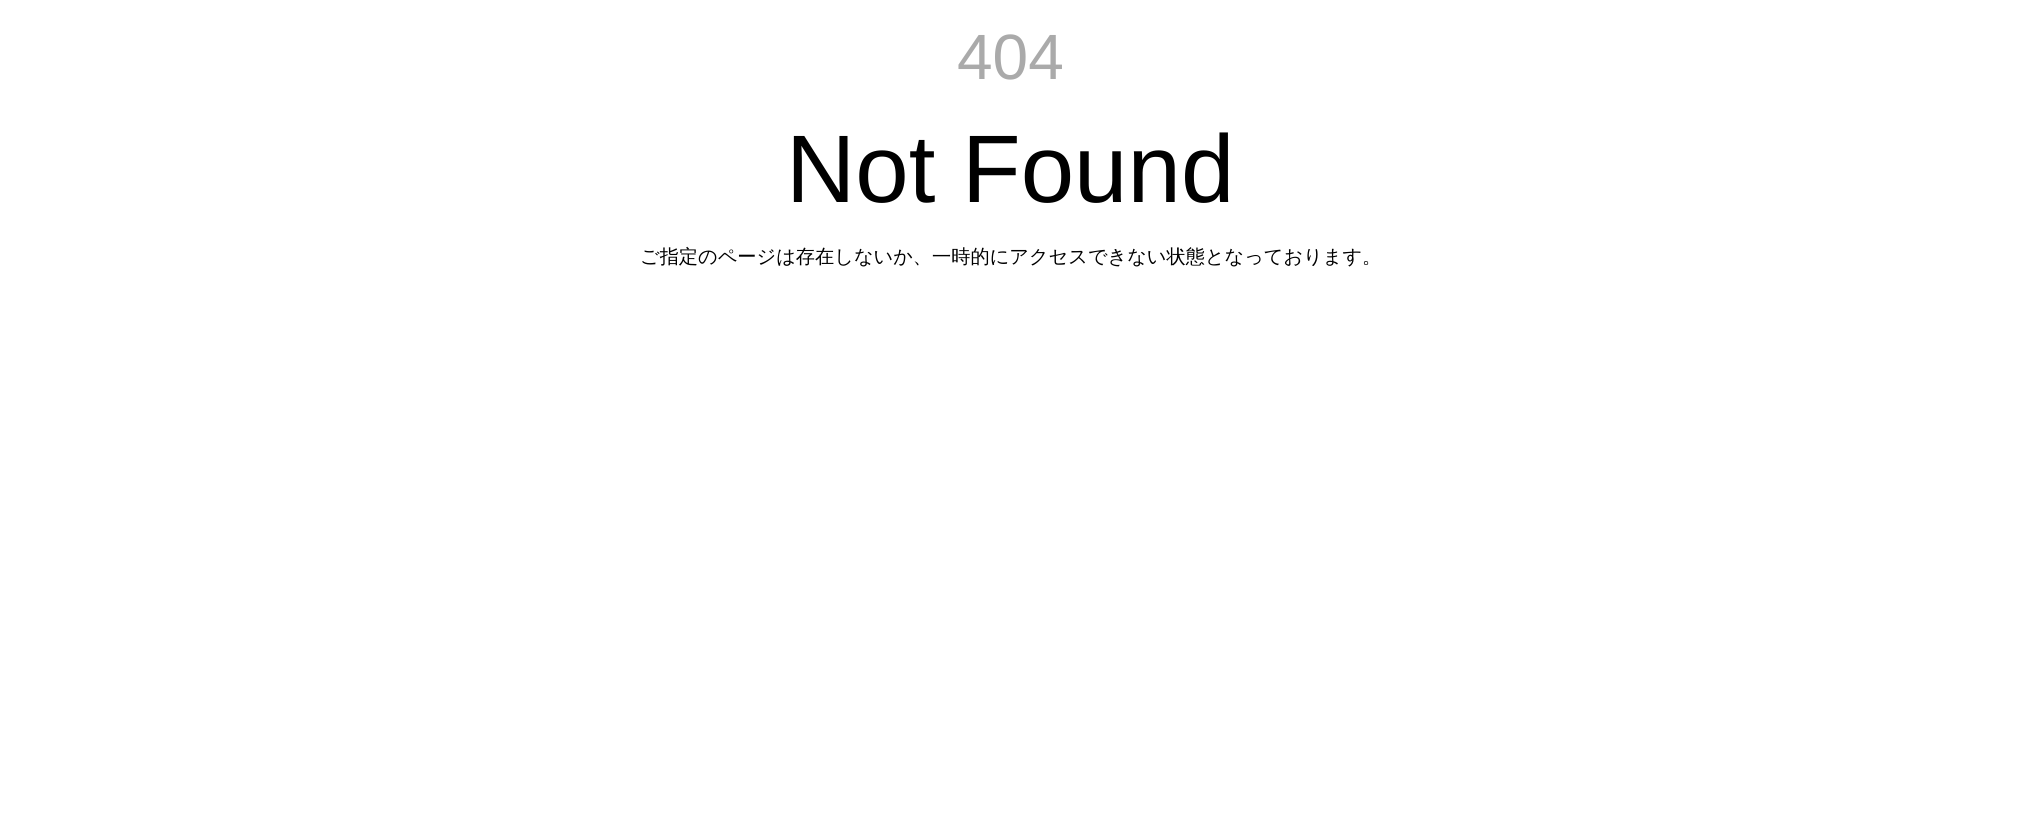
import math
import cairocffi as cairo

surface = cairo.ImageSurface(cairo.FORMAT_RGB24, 2020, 824)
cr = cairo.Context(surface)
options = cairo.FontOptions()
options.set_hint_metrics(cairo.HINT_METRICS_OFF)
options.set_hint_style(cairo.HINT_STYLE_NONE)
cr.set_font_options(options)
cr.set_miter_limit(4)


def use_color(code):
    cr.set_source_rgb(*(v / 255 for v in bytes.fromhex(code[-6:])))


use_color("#ffffff")
cr.paint()
cr.select_font_face("Liberation Sans")
cr.set_font_size(64)
use_color("#aaaaaa")
cr.move_to(957, 79)
cr.show_text("404")
cr.set_font_size(96)
use_color("#000000")
cr.move_to(786, 202)
cr.show_text("Not Found")
cr.select_font_face("WenQuanYi Zen Hei Medium")
cr.set_font_size(19.2)
cr.move_to(640, 263)
cr.show_text("ご指定のページは存在しないか、一時的にアクセスできない状態となっております。")
surface.write_to_png("result.png")
